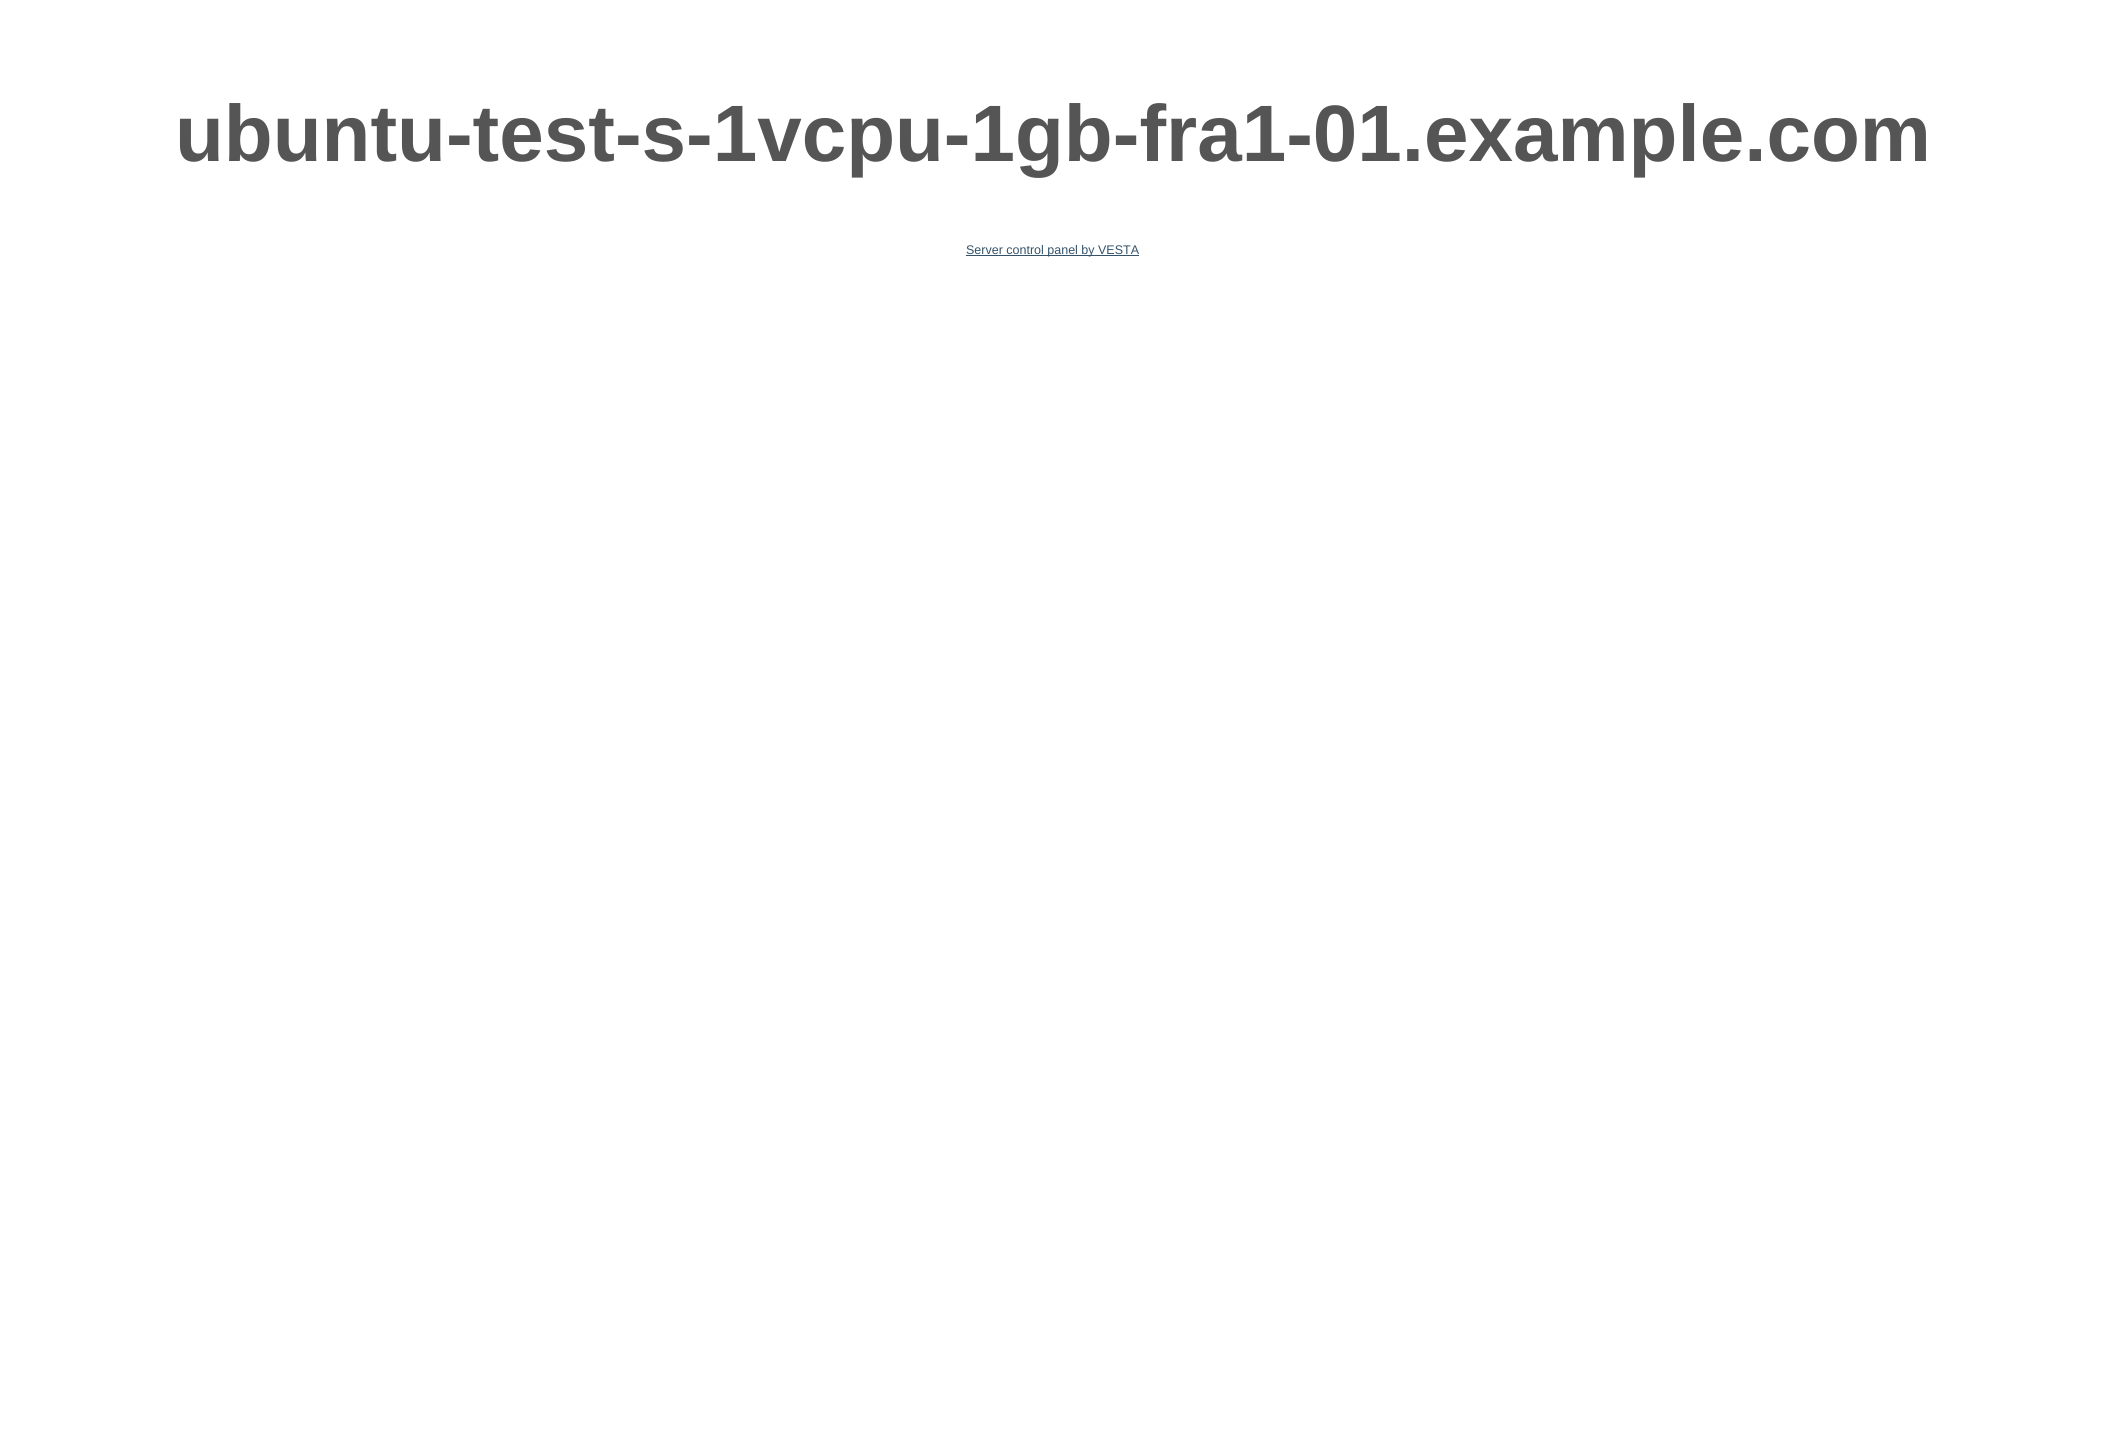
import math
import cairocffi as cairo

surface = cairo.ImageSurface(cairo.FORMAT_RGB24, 2104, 1437)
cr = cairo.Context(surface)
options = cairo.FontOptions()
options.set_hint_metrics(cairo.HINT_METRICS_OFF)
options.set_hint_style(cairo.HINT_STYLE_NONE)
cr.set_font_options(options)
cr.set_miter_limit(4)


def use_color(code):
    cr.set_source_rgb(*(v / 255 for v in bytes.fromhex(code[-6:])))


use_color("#ffffff")
cr.paint()
cr.select_font_face("Liberation Sans", cairo.FONT_SLANT_NORMAL, cairo.FONT_WEIGHT_BOLD)
cr.set_font_size(80)
use_color("#555555")
cr.move_to(175, 161)
cr.show_text("ubuntu-test-s-1vcpu-1gb-fra1-01.example.com")
use_color("#34536a")
cr.rectangle(966, 255, 173, 1)
cr.fill()
cr.select_font_face("Liberation Sans")
cr.set_font_size(12.5)
cr.move_to(966, 254)
cr.show_text("Server control panel by VESTA")
surface.write_to_png("result.png")
